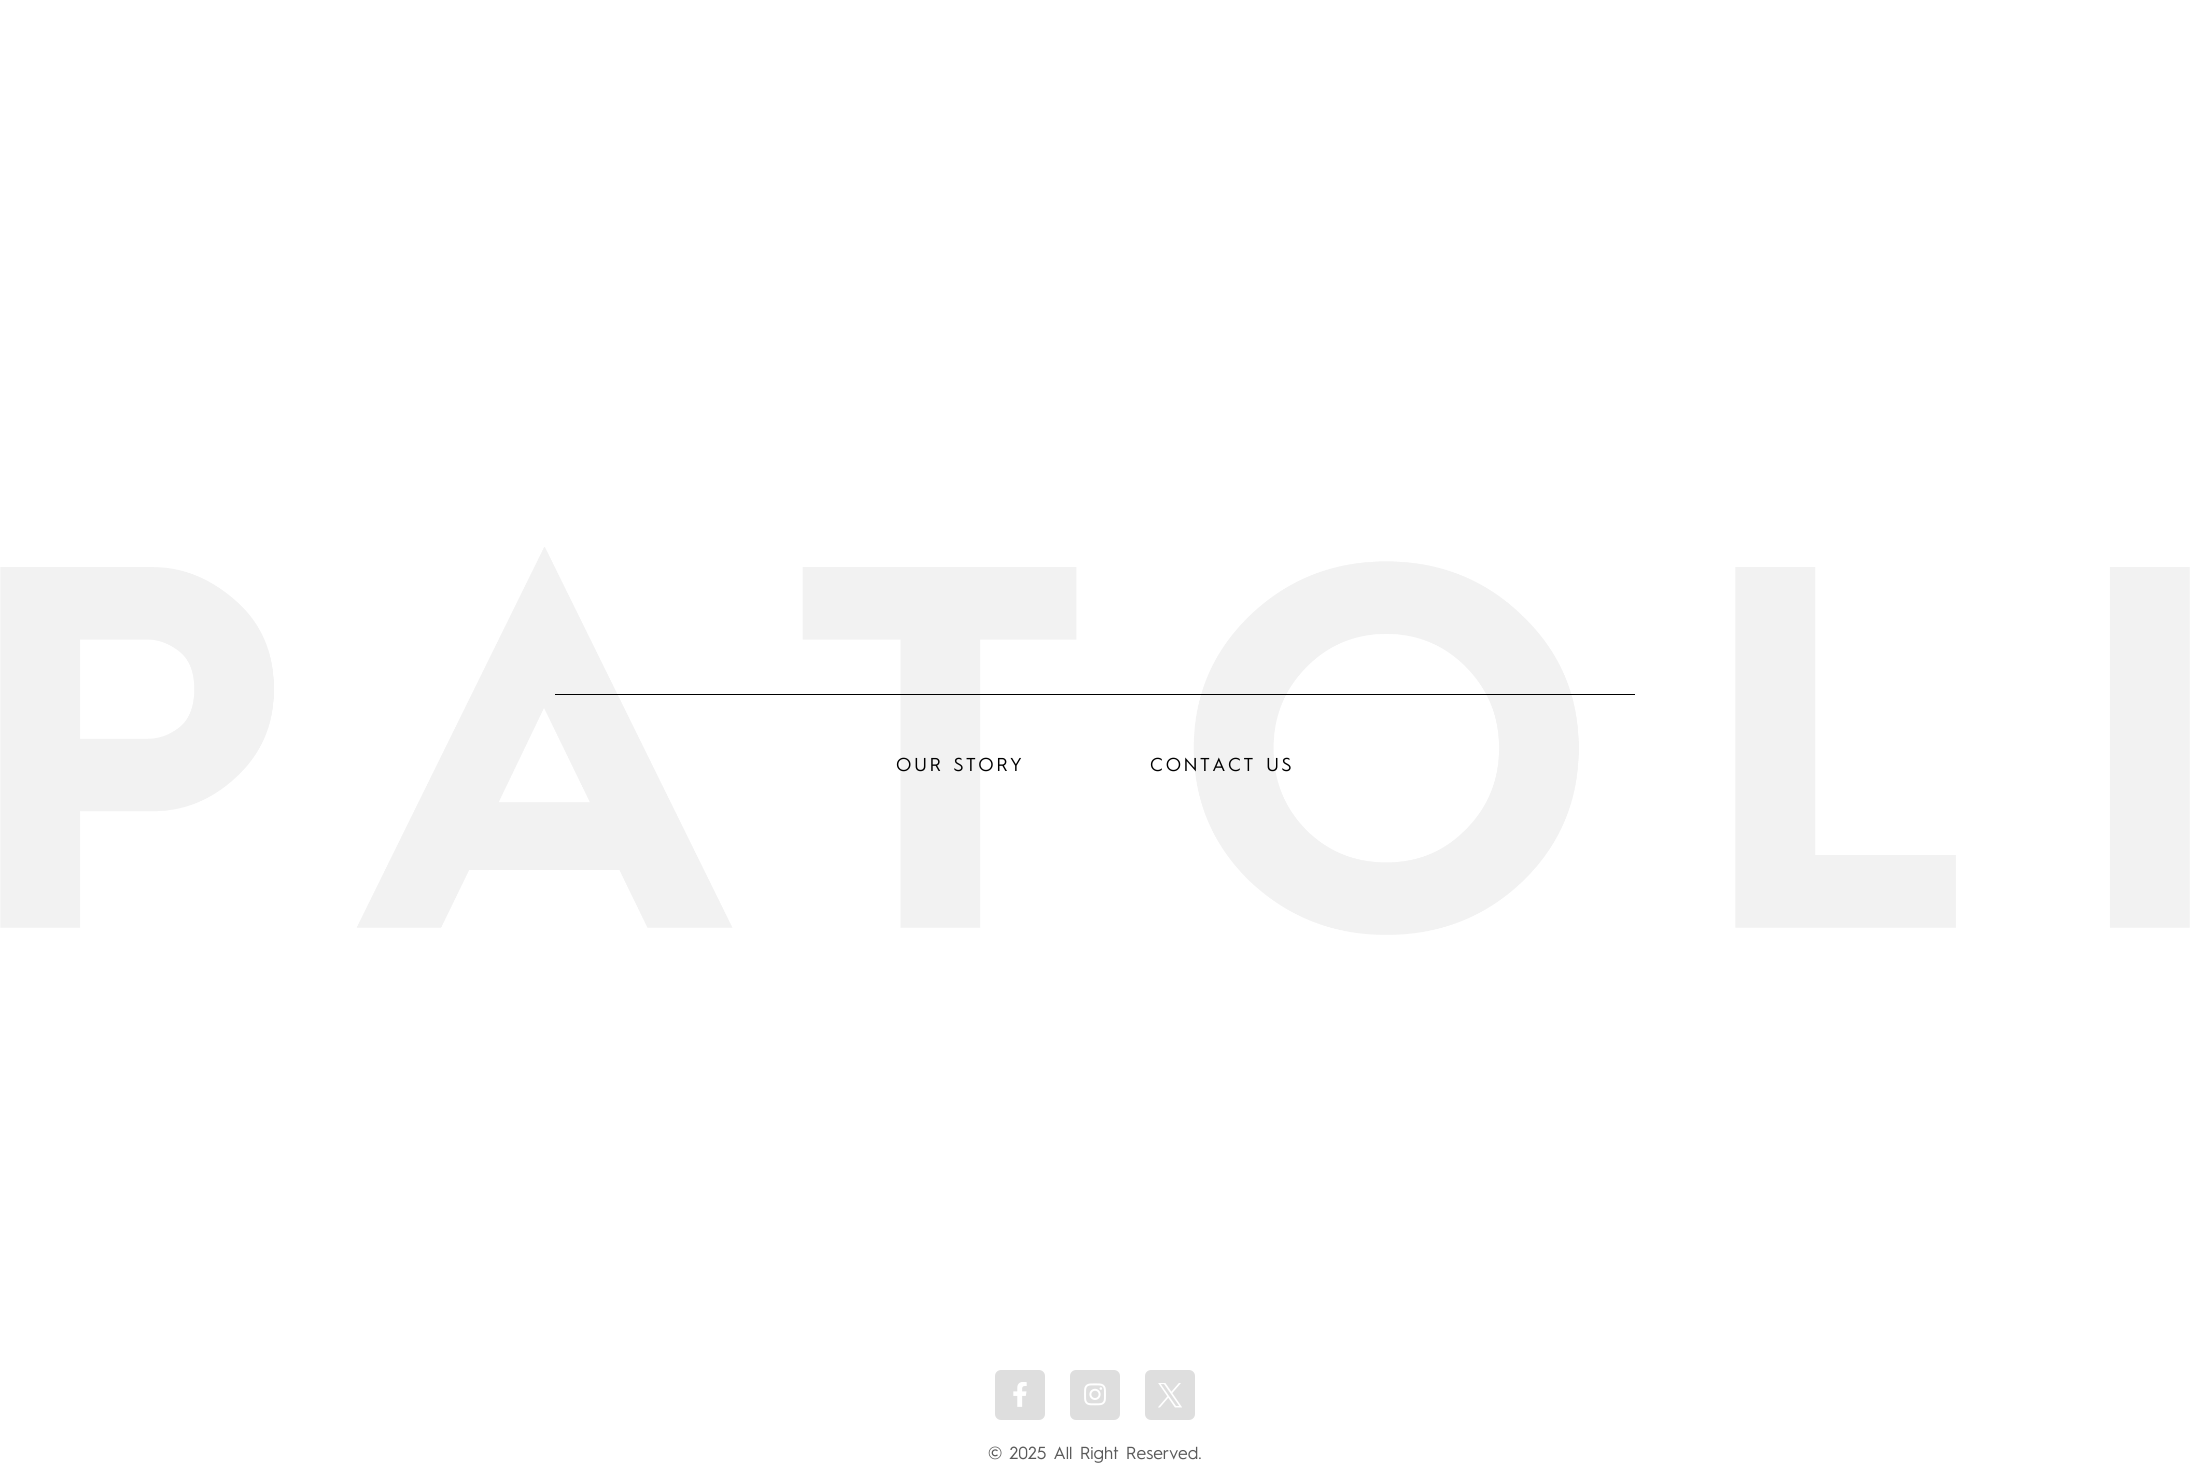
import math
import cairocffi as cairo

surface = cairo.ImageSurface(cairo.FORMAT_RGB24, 2190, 1480)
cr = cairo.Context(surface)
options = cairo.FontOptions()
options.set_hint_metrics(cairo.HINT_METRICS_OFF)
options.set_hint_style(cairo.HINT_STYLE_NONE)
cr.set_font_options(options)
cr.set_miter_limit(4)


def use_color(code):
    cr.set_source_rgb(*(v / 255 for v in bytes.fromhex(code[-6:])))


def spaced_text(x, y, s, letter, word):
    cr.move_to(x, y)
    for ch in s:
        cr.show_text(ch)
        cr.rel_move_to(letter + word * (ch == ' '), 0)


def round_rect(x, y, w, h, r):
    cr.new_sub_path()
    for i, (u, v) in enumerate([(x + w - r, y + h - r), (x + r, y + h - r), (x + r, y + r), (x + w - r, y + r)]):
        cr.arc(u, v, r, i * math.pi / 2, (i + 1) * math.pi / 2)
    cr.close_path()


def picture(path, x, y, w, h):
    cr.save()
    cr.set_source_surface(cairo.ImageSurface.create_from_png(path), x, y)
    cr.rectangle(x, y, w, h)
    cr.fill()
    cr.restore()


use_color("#ffffff")
cr.paint()
picture("img1.png", 0, 547, 2190, 388)
use_color("#000000")
cr.rectangle(555, 694, 1080, 1)
cr.fill()
cr.select_font_face("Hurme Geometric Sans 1")
cr.set_font_size(18.75)
spaced_text(896, 771, "OUR STORY", 2.5, 0)
spaced_text(1150, 771, "CONTACT US", 2.5, 0)
use_color("#dedede")
round_rect(995, 1370, 50, 50, 6)
cr.fill()
picture("img2.png", 1013, 1382, 14, 25)
round_rect(1070, 1370, 50, 50, 6)
cr.fill()
picture("img3.png", 1084, 1383, 22, 23)
round_rect(1145, 1370, 50, 50, 6)
cr.fill()
picture("img4.png", 1158, 1383, 24, 25)
cr.set_font_size(17.5)
use_color("#5a5a5a")
cr.move_to(988, 1459)
cr.show_text("© 2025 All Right Reserved.")
surface.write_to_png("result.png")
